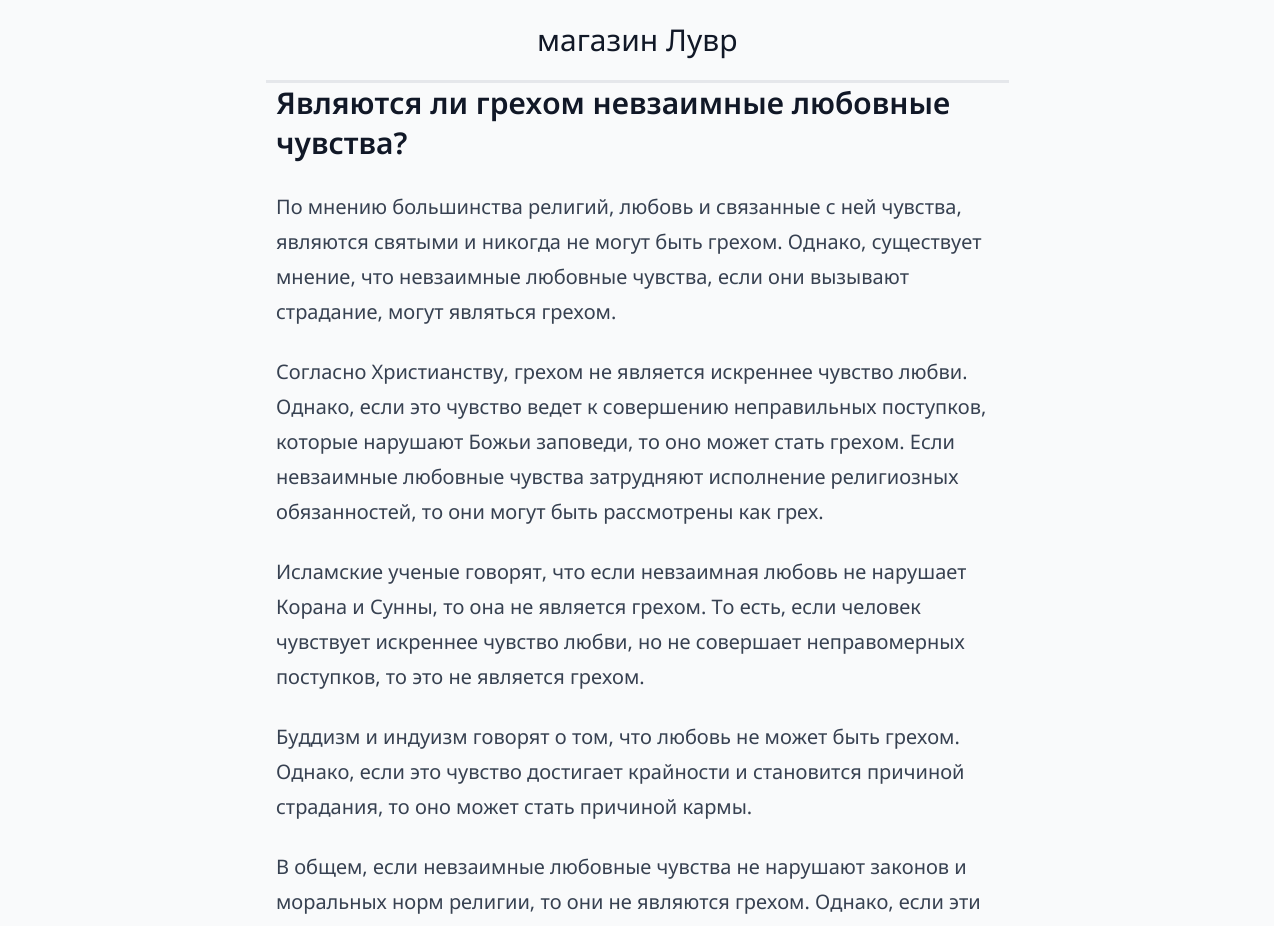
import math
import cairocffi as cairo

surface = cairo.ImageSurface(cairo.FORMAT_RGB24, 1274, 926)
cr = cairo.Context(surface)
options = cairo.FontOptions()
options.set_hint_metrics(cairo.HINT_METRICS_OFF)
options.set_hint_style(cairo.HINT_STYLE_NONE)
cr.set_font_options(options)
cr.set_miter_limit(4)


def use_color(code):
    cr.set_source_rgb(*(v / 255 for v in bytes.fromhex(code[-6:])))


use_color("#f9fafb")
cr.paint()
cr.select_font_face("Noto Sans")
cr.set_font_size(30)
use_color("#111827")
cr.move_to(537, 51)
cr.show_text("магазин Лувр")
use_color("#e5e7eb")
cr.rectangle(266, 80, 743, 3)
cr.fill()
cr.select_font_face("Noto Sans SemiBold")
use_color("#111827")
cr.move_to(276, 114)
cr.show_text("Являются ли грехом невзаимные любовные")
cr.move_to(276, 154)
cr.show_text("чувства?")
cr.select_font_face("Noto Sans")
cr.set_font_size(20)
use_color("#374151")
cr.move_to(276, 214)
cr.show_text("По мнению большинства религий, любовь и связанные с ней чувства,")
cr.move_to(276, 249)
cr.show_text("являются святыми и никогда не могут быть грехом. Однако, существует")
cr.move_to(276, 284)
cr.show_text("мнение, что невзаимные любовные чувства, если они вызывают")
cr.move_to(276, 319)
cr.show_text("страдание, могут являться грехом.")
cr.move_to(276, 379)
cr.show_text("Согласно Христианству, грехом не является искреннее чувство любви.")
cr.move_to(276, 414)
cr.show_text("Однако, если это чувство ведет к совершению неправильных поступков,")
cr.move_to(276, 449)
cr.show_text("которые нарушают Божьи заповеди, то оно может стать грехом. Если")
cr.move_to(276, 484)
cr.show_text("невзаимные любовные чувства затрудняют исполнение религиозных")
cr.move_to(276, 519)
cr.show_text("обязанностей, то они могут быть рассмотрены как грех.")
cr.move_to(276, 579)
cr.show_text("Исламские ученые говорят, что если невзаимная любовь не нарушает")
cr.move_to(276, 614)
cr.show_text("Корана и Сунны, то она не является грехом. То есть, если человек")
cr.move_to(276, 649)
cr.show_text("чувствует искреннее чувство любви, но не совершает неправомерных")
cr.move_to(276, 684)
cr.show_text("поступков, то это не является грехом.")
cr.move_to(276, 744)
cr.show_text("Буддизм и индуизм говорят о том, что любовь не может быть грехом.")
cr.move_to(276, 779)
cr.show_text("Однако, если это чувство достигает крайности и становится причиной")
cr.move_to(276, 814)
cr.show_text("страдания, то оно может стать причиной кармы.")
cr.move_to(276, 874)
cr.show_text("В общем, если невзаимные любовные чувства не нарушают законов и")
cr.move_to(276, 909)
cr.show_text("моральных норм религии, то они не являются грехом. Однако, если эти")
surface.write_to_png("result.png")
